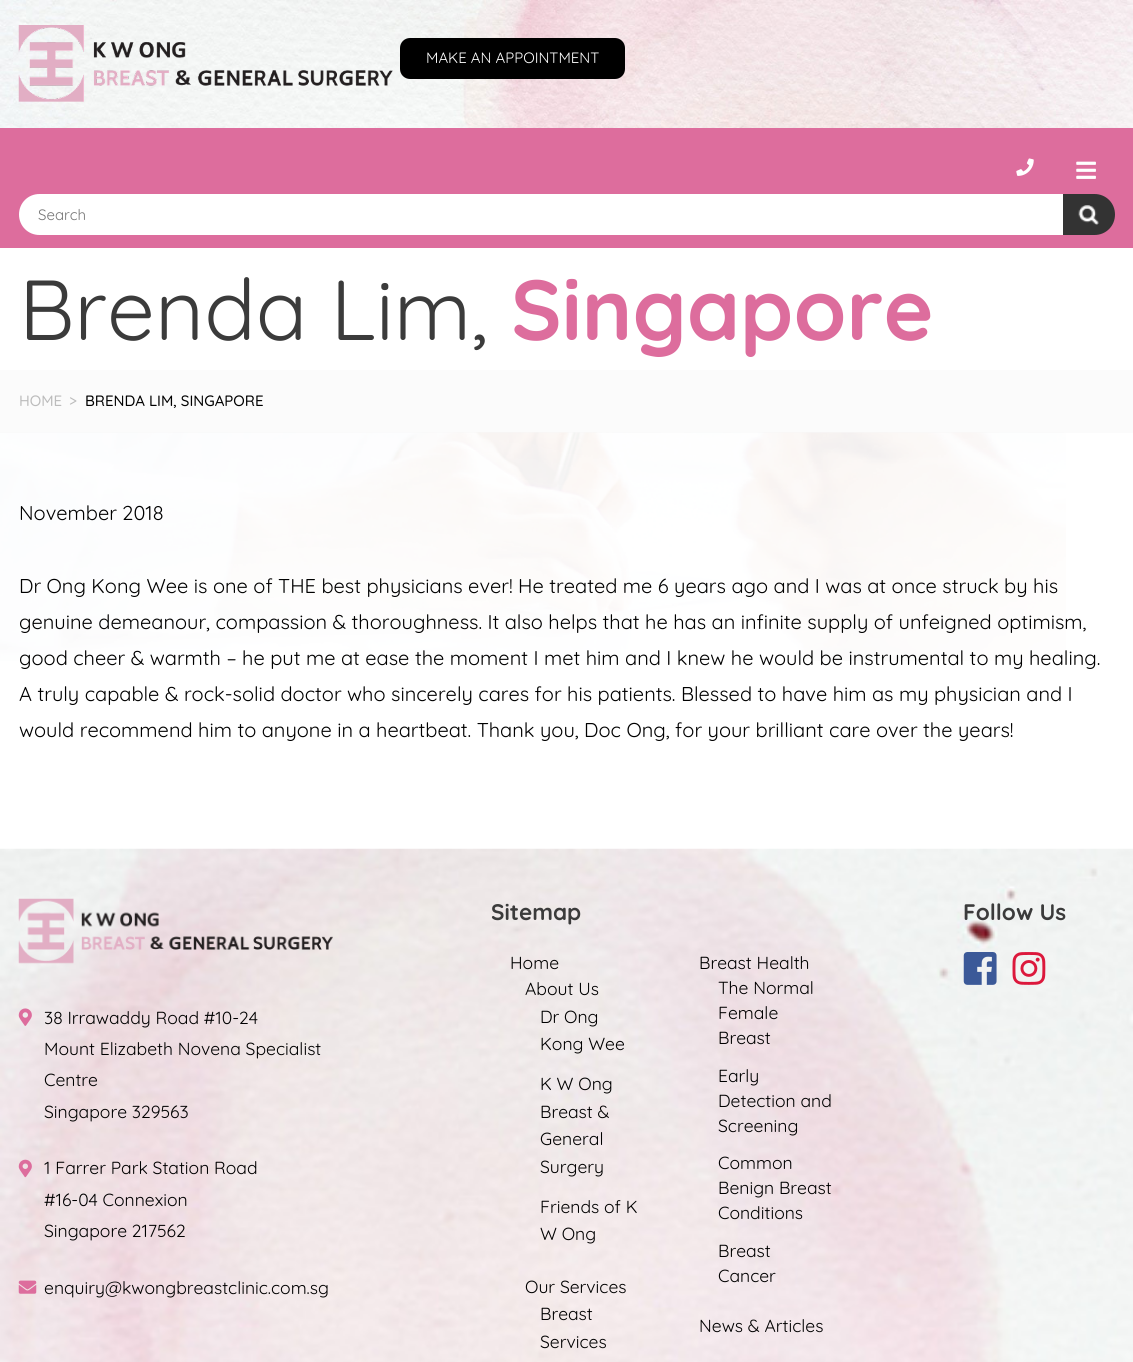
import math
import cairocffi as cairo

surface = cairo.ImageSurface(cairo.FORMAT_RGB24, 1133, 1362)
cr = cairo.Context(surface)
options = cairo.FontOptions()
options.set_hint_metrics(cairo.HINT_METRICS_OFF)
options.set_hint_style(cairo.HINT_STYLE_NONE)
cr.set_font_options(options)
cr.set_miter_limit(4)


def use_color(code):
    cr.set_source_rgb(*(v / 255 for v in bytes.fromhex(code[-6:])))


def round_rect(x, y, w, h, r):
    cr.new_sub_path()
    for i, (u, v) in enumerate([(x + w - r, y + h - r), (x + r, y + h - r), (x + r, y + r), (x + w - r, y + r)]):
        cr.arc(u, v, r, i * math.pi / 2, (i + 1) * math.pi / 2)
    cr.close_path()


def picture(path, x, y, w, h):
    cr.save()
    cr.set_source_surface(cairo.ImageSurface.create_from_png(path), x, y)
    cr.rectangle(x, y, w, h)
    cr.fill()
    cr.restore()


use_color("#ffffff")
cr.paint()
picture("img1.png", 0, 0, 1133, 128)
picture("img2.png", 18, 25, 375, 77)
use_color("#000000")
round_rect(400, 38, 225, 41, 10)
cr.fill()
cr.select_font_face("Quicksand")
cr.set_font_size(15)
use_color("#ffffff")
cr.move_to(426, 63)
cr.show_text("MAKE AN APPOINTMENT")
use_color("#dd6d9d")
cr.rectangle(0, 128, 1133, 120)
cr.fill()
picture("img3.png", 1016, 158, 18, 18)
picture("img4.png", 1076, 161, 20, 18)
use_color("#ffffff")
cr.new_path()
cr.move_to(39.5, 194)
cr.line_to(1063, 194)
cr.line_to(1063, 235)
cr.line_to(39.5, 235)
cr.curve_to(28, 235, 19, 226, 19, 214.5)
cr.curve_to(19, 203, 28, 194, 39.5, 194)
cr.close_path()
cr.fill()
use_color("#757575")
cr.move_to(38, 220)
cr.show_text("Search")
use_color("#333333")
cr.new_path()
cr.move_to(1063, 194)
cr.line_to(1094.5, 194)
cr.curve_to(1106, 194, 1115, 203, 1115, 214.5)
cr.curve_to(1115, 226, 1106, 235, 1094.5, 235)
cr.line_to(1063, 235)
cr.close_path()
cr.fill()
picture("img5.png", 1078, 205, 21, 20)
cr.set_font_size(85)
use_color("#3b3b3b")
cr.move_to(19, 340)
cr.show_text("Brenda Lim,")
cr.select_font_face("Quicksand", cairo.FONT_SLANT_NORMAL, cairo.FONT_WEIGHT_BOLD)
use_color("#dd6d9d")
cr.move_to(511, 340)
cr.show_text("Singapore")
use_color("#fbfbfb")
cr.rectangle(0, 370, 1133, 63)
cr.fill()
cr.select_font_face("Quicksand Medium")
cr.set_font_size(15)
use_color("#bcbcbc")
cr.move_to(19, 406)
cr.show_text("HOME")
cr.move_to(69, 406)
cr.show_text(">")
use_color("#000000")
cr.move_to(85, 406)
cr.show_text("BRENDA LIM, SINGAPORE")
picture("img6.png", 0, 432, 1066, 229)
cr.select_font_face("Quicksand")
cr.set_font_size(20)
cr.move_to(19, 520)
cr.show_text("November 2018")
cr.move_to(19, 593)
cr.show_text("Dr Ong Kong Wee is one of THE best physicians ever! He treated me 6 years ago and I was at once struck by his")
cr.move_to(19, 629)
cr.show_text("genuine demeanour, compassion & thoroughness. It also helps that he has an infinite supply of unfeigned optimism,")
cr.move_to(19, 665)
cr.show_text("good cheer & warmth – he put me at ease the moment I met him and I knew he would be instrumental to my healing.")
cr.move_to(19, 701)
cr.show_text("A truly capable & rock-solid doctor who sincerely cares for his patients. Blessed to have him as my physician and I")
cr.move_to(19, 737)
cr.show_text("would recommend him to anyone in a heartbeat. Thank you, Doc Ong, for your brilliant care over the years!")
picture("img7.png", 0, 848, 1133, 514)
cr.select_font_face("Quicksand", cairo.FONT_SLANT_NORMAL, cairo.FONT_WEIGHT_BOLD)
cr.set_font_size(22.5)
use_color("#3b3b3b")
cr.move_to(491, 920)
cr.show_text("Sitemap")
cr.select_font_face("Quicksand")
cr.set_font_size(17.5)
use_color("#000000")
cr.move_to(510, 969)
cr.show_text("Home")
cr.move_to(525, 995)
cr.show_text("About Us")
cr.move_to(540, 1023)
cr.show_text("Dr Ong")
cr.move_to(540, 1050)
cr.show_text("Kong Wee")
cr.move_to(540, 1090)
cr.show_text("K W Ong")
cr.move_to(540, 1118)
cr.show_text("Breast &")
cr.move_to(540, 1145)
cr.show_text("General")
cr.move_to(540, 1173)
cr.show_text("Surgery")
cr.move_to(540, 1213)
cr.show_text("Friends of K")
cr.move_to(540, 1240)
cr.show_text("W Ong")
cr.move_to(525, 1293)
cr.show_text("Our Services")
cr.move_to(540, 1320)
cr.show_text("Breast")
cr.move_to(540, 1348)
cr.show_text("Services")
cr.select_font_face("Quicksand", cairo.FONT_SLANT_NORMAL, cairo.FONT_WEIGHT_BOLD)
cr.set_font_size(22.5)
use_color("#3b3b3b")
cr.move_to(963, 920)
cr.show_text("Follow Us")
picture("img8.png", 963, 952, 34, 33)
picture("img9.png", 1012, 952, 34, 33)
picture("img10.png", 18, 898, 315, 66)
picture("img11.png", 18, 1008, 14, 18)
cr.select_font_face("Quicksand")
cr.set_font_size(17.5)
use_color("#000000")
cr.move_to(44, 1024)
cr.show_text("38 Irrawaddy Road #10-24")
cr.move_to(44, 1055)
cr.show_text("Mount Elizabeth Novena Specialist")
cr.move_to(44, 1086)
cr.show_text("Centre")
cr.move_to(44, 1118)
cr.show_text("Singapore 329563")
picture("img12.png", 18, 1159, 14, 19)
cr.move_to(44, 1174)
cr.show_text("1 Farrer Park Station Road")
cr.move_to(44, 1206)
cr.show_text("#16-04 Connexion")
cr.move_to(44, 1237)
cr.show_text("Singapore 217562")
picture("img13.png", 18, 1280, 19, 14)
cr.move_to(44, 1294)
cr.show_text("enquiry@kwongbreastclinic.com.sg")
cr.move_to(699, 969)
cr.show_text("Breast Health")
cr.move_to(718, 994)
cr.show_text("The Normal")
cr.move_to(718, 1019)
cr.show_text("Female")
cr.move_to(718, 1044)
cr.show_text("Breast")
cr.move_to(718, 1082)
cr.show_text("Early")
cr.move_to(718, 1107)
cr.show_text("Detection and")
cr.move_to(718, 1132)
cr.show_text("Screening")
cr.move_to(718, 1169)
cr.show_text("Common")
cr.move_to(718, 1194)
cr.show_text("Benign Breast")
cr.move_to(718, 1219)
cr.show_text("Conditions")
cr.move_to(718, 1257)
cr.show_text("Breast")
cr.move_to(718, 1282)
cr.show_text("Cancer")
cr.move_to(699, 1332)
cr.show_text("News & Articles")
surface.write_to_png("result.png")
